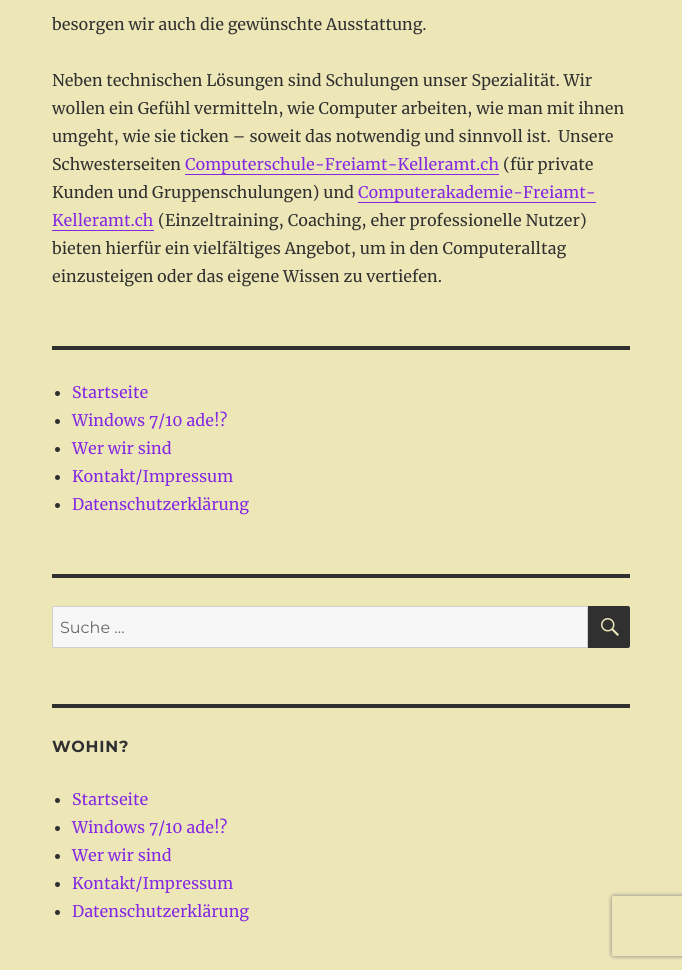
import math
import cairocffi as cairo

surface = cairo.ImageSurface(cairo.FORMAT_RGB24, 682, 970)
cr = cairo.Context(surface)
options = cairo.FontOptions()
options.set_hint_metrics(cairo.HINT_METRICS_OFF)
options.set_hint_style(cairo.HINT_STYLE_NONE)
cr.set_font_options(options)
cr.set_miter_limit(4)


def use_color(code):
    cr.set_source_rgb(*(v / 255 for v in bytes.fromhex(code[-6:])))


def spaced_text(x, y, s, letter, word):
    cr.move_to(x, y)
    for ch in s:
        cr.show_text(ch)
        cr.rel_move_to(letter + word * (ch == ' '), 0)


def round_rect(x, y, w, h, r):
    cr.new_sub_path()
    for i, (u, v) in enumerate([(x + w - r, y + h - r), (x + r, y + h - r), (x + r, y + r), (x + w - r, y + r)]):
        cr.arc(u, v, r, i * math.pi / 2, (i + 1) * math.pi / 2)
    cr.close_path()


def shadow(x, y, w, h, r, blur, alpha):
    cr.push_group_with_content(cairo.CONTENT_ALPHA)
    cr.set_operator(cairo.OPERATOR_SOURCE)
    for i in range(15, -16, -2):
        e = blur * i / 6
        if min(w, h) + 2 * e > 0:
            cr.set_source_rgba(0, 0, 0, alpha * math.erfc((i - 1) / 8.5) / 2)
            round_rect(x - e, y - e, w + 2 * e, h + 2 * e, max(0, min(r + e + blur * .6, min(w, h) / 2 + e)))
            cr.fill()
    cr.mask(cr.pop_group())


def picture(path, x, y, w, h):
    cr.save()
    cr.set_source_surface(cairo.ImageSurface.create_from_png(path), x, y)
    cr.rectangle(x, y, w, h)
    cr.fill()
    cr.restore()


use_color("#ede7b8")
cr.paint()
cr.select_font_face("Merriweather")
cr.set_font_size(16)
use_color("#303030")
cr.move_to(52, 30)
cr.show_text("besorgen wir auch die gewünschte Ausstattung.")
cr.move_to(52, 86)
cr.show_text("Neben technischen Lösungen sind Schulungen unser Spezialität. Wir")
cr.move_to(52, 114)
cr.show_text("wollen ein Gefühl vermitteln, wie Computer arbeiten, wie man mit ihnen")
cr.move_to(52, 142)
cr.show_text("umgeht, wie sie ticken – soweit das notwendig und sinnvoll ist.  Unsere")
cr.move_to(52, 170)
cr.show_text("Schwesterseiten")
use_color("#8426e2")
cr.move_to(185, 170)
cr.show_text("Computerschule-Freiamt-Kelleramt.ch")
cr.rectangle(185, 174, 314, 1)
cr.fill()
use_color("#303030")
cr.move_to(503, 170)
cr.show_text("(für private")
cr.move_to(52, 198)
cr.show_text("Kunden und Gruppenschulungen) und")
use_color("#8426e2")
cr.move_to(358, 198)
cr.show_text("Computerakademie-Freiamt-")
cr.rectangle(358, 202, 238, 1)
cr.fill()
cr.move_to(52, 226)
cr.show_text("Kelleramt.ch")
cr.rectangle(52, 230, 102, 1)
cr.fill()
use_color("#303030")
cr.move_to(158, 226)
cr.show_text("(Einzeltraining, Coaching, eher professionelle Nutzer)")
cr.move_to(52, 254)
cr.show_text("bieten hierfür ein vielfältiges Angebot, um in den Computeralltag")
cr.move_to(52, 282)
cr.show_text("einzusteigen oder das eigene Wissen zu vertiefen.")
cr.rectangle(52, 346, 578, 4)
cr.fill()
cr.arc(57.5, 393.5, 2.5, 0, 2 * math.pi)
cr.fill()
use_color("#8426e2")
cr.move_to(72, 398)
cr.show_text("Startseite")
use_color("#303030")
cr.new_path()
cr.arc(57.5, 421.5, 2.5, 0, 2 * math.pi)
cr.fill()
use_color("#8426e2")
cr.move_to(72, 426)
cr.show_text("Windows 7/10 ade!?")
use_color("#303030")
cr.new_path()
cr.arc(57.5, 449.5, 2.5, 0, 2 * math.pi)
cr.fill()
use_color("#8426e2")
cr.move_to(72, 454)
cr.show_text("Wer wir sind")
use_color("#303030")
cr.new_path()
cr.arc(57.5, 477.5, 2.5, 0, 2 * math.pi)
cr.fill()
use_color("#8426e2")
cr.move_to(72, 482)
cr.show_text("Kontakt/Impressum")
use_color("#303030")
cr.new_path()
cr.arc(57.5, 505.5, 2.5, 0, 2 * math.pi)
cr.fill()
use_color("#8426e2")
cr.move_to(72, 510)
cr.show_text("Datenschutzerklärung")
use_color("#303030")
cr.rectangle(52, 574, 578, 4)
cr.fill()
use_color("#f7f7f7")
cr.new_path()
cr.move_to(54, 606)
cr.line_to(588, 606)
cr.line_to(588, 648)
cr.line_to(54, 648)
cr.curve_to(53, 648, 52, 647, 52, 646)
cr.line_to(52, 608)
cr.curve_to(52, 607, 53, 606, 54, 606)
cr.close_path()
cr.fill()
cr.new_path()
cr.move_to(54, 606.5)
cr.line_to(587.5, 606.5)
cr.line_to(587.5, 647.5)
cr.line_to(54, 647.5)
cr.curve_to(53, 647.5, 52.5, 647, 52.5, 646)
cr.line_to(52.5, 608)
cr.curve_to(52.5, 607, 53, 606.5, 54, 606.5)
cr.close_path()
cr.set_source_rgba(0.188, 0.188, 0.188, 0.2)
cr.set_line_width(1)
cr.stroke()
cr.select_font_face("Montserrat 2 Thin")
use_color("#686868")
cr.move_to(60, 633)
cr.show_text("Suche …")
use_color("#303030")
cr.new_path()
cr.move_to(588, 606)
cr.line_to(628, 606)
cr.curve_to(629, 606, 630, 607, 630, 608)
cr.line_to(630, 646)
cr.curve_to(630, 647, 629, 648, 628, 648)
cr.line_to(588, 648)
cr.close_path()
cr.fill()
picture("img1.png", 601, 618, 18, 18)
cr.rectangle(52, 704, 578, 4)
cr.fill()
cr.select_font_face("Montserrat Thin")
spaced_text(52, 752, "WOHIN?", 0.75, 0)
cr.new_path()
cr.arc(57.5, 800.5, 2.5, 0, 2 * math.pi)
cr.fill()
cr.select_font_face("Merriweather")
use_color("#8426e2")
cr.move_to(72, 805)
cr.show_text("Startseite")
use_color("#303030")
cr.new_path()
cr.arc(57.5, 828.5, 2.5, 0, 2 * math.pi)
cr.fill()
use_color("#8426e2")
cr.move_to(72, 833)
cr.show_text("Windows 7/10 ade!?")
use_color("#303030")
cr.new_path()
cr.arc(57.5, 856.5, 2.5, 0, 2 * math.pi)
cr.fill()
use_color("#8426e2")
cr.move_to(72, 861)
cr.show_text("Wer wir sind")
use_color("#303030")
cr.new_path()
cr.arc(57.5, 884.5, 2.5, 0, 2 * math.pi)
cr.fill()
use_color("#8426e2")
cr.move_to(72, 889)
cr.show_text("Kontakt/Impressum")
use_color("#303030")
cr.new_path()
cr.arc(57.5, 912.5, 2.5, 0, 2 * math.pi)
cr.fill()
use_color("#8426e2")
cr.move_to(72, 917)
cr.show_text("Datenschutzerklärung")
cr.save()
cr.set_fill_rule(cairo.FILL_RULE_EVEN_ODD)
cr.new_path()
cr.move_to(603, 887)
cr.line_to(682, 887)
cr.line_to(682, 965)
cr.line_to(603, 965)
cr.close_path()
cr.move_to(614, 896)
cr.line_to(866, 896)
cr.curve_to(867, 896, 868, 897, 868, 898)
cr.line_to(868, 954)
cr.curve_to(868, 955, 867, 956, 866, 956)
cr.line_to(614, 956)
cr.curve_to(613, 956, 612, 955, 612, 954)
cr.line_to(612, 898)
cr.curve_to(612, 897, 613, 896, 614, 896)
cr.close_path()
cr.clip()
use_color("#808080")
shadow(612, 896, 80, 60, 2, 2.5, 1)
cr.restore()
surface.write_to_png("result.png")
